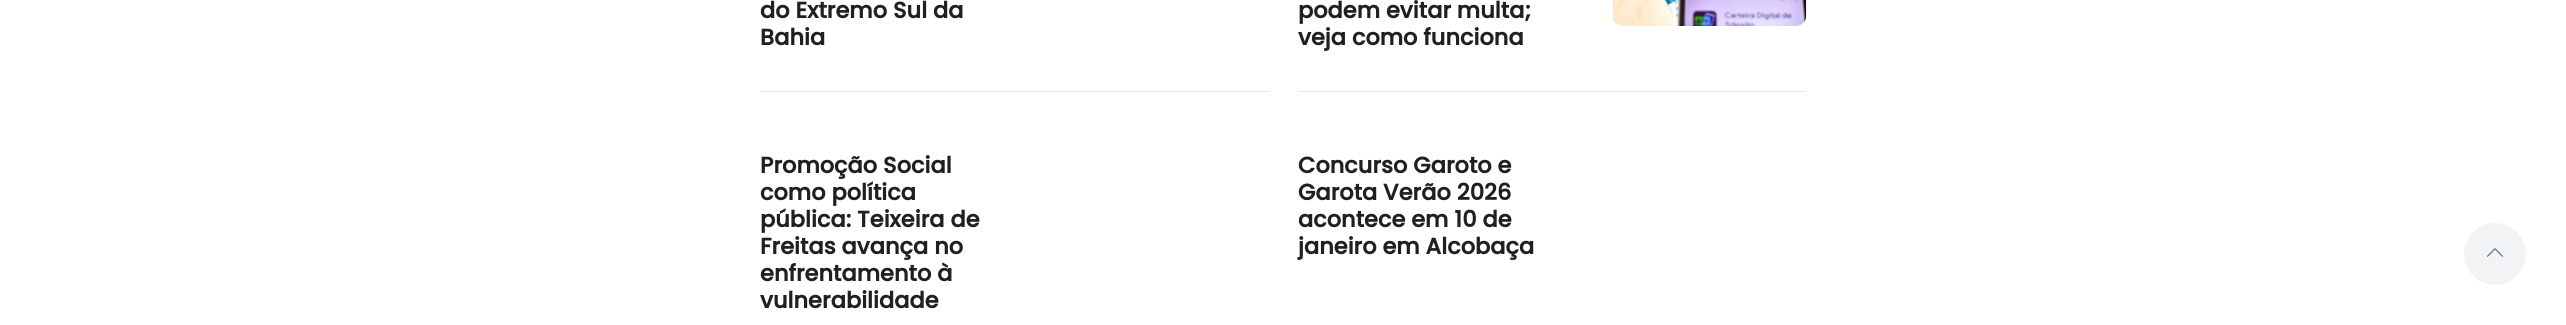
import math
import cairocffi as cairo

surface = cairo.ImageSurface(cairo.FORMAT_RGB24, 2566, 325)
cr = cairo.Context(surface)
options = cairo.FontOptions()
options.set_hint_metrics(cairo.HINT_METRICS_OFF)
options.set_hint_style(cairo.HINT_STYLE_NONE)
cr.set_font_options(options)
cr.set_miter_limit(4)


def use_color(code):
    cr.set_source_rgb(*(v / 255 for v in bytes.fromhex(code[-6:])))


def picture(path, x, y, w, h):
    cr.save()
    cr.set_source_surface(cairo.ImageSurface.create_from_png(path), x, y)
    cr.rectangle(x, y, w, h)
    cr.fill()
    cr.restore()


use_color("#ffffff")
cr.paint()
use_color("#e9ebef")
cr.rectangle(760, 91, 509, 1)
cr.fill()
cr.select_font_face("Poppins", cairo.FONT_SLANT_NORMAL, cairo.FONT_WEIGHT_BOLD)
cr.set_font_size(22.5)
use_color("#1e2022")
cr.move_to(760, 18)
cr.show_text("do Extremo Sul da")
cr.move_to(760, 45)
cr.show_text("Bahia")
use_color("#e9ebef")
cr.rectangle(1299, 91, 507, 1)
cr.fill()
use_color("#1e2022")
cr.move_to(1298, 18)
cr.show_text("podem evitar multa;")
cr.move_to(1298, 45)
cr.show_text("veja como funciona")
picture("img1.png", 1612, 0, 195, 26)
cr.move_to(760, 173)
cr.show_text("Promoção Social")
cr.move_to(760, 200)
cr.show_text("como política")
cr.move_to(760, 227)
cr.show_text("pública: Teixeira de")
cr.move_to(760, 254)
cr.show_text("Freitas avança no")
cr.move_to(760, 281)
cr.show_text("enfrentamento à")
cr.move_to(760, 308)
cr.show_text("vulnerabilidade")
cr.move_to(1298, 173)
cr.show_text("Concurso Garoto e")
cr.move_to(1298, 200)
cr.show_text("Garota Verão 2026")
cr.move_to(1298, 227)
cr.show_text("acontece em 10 de")
cr.move_to(1298, 254)
cr.show_text("janeiro em Alcobaça")
use_color("#f1f3f5")
cr.new_path()
cr.arc(2495, 254, 31, 0, 2 * math.pi)
cr.fill()
picture("img2.png", 2486, 248, 18, 9)
surface.write_to_png("result.png")
